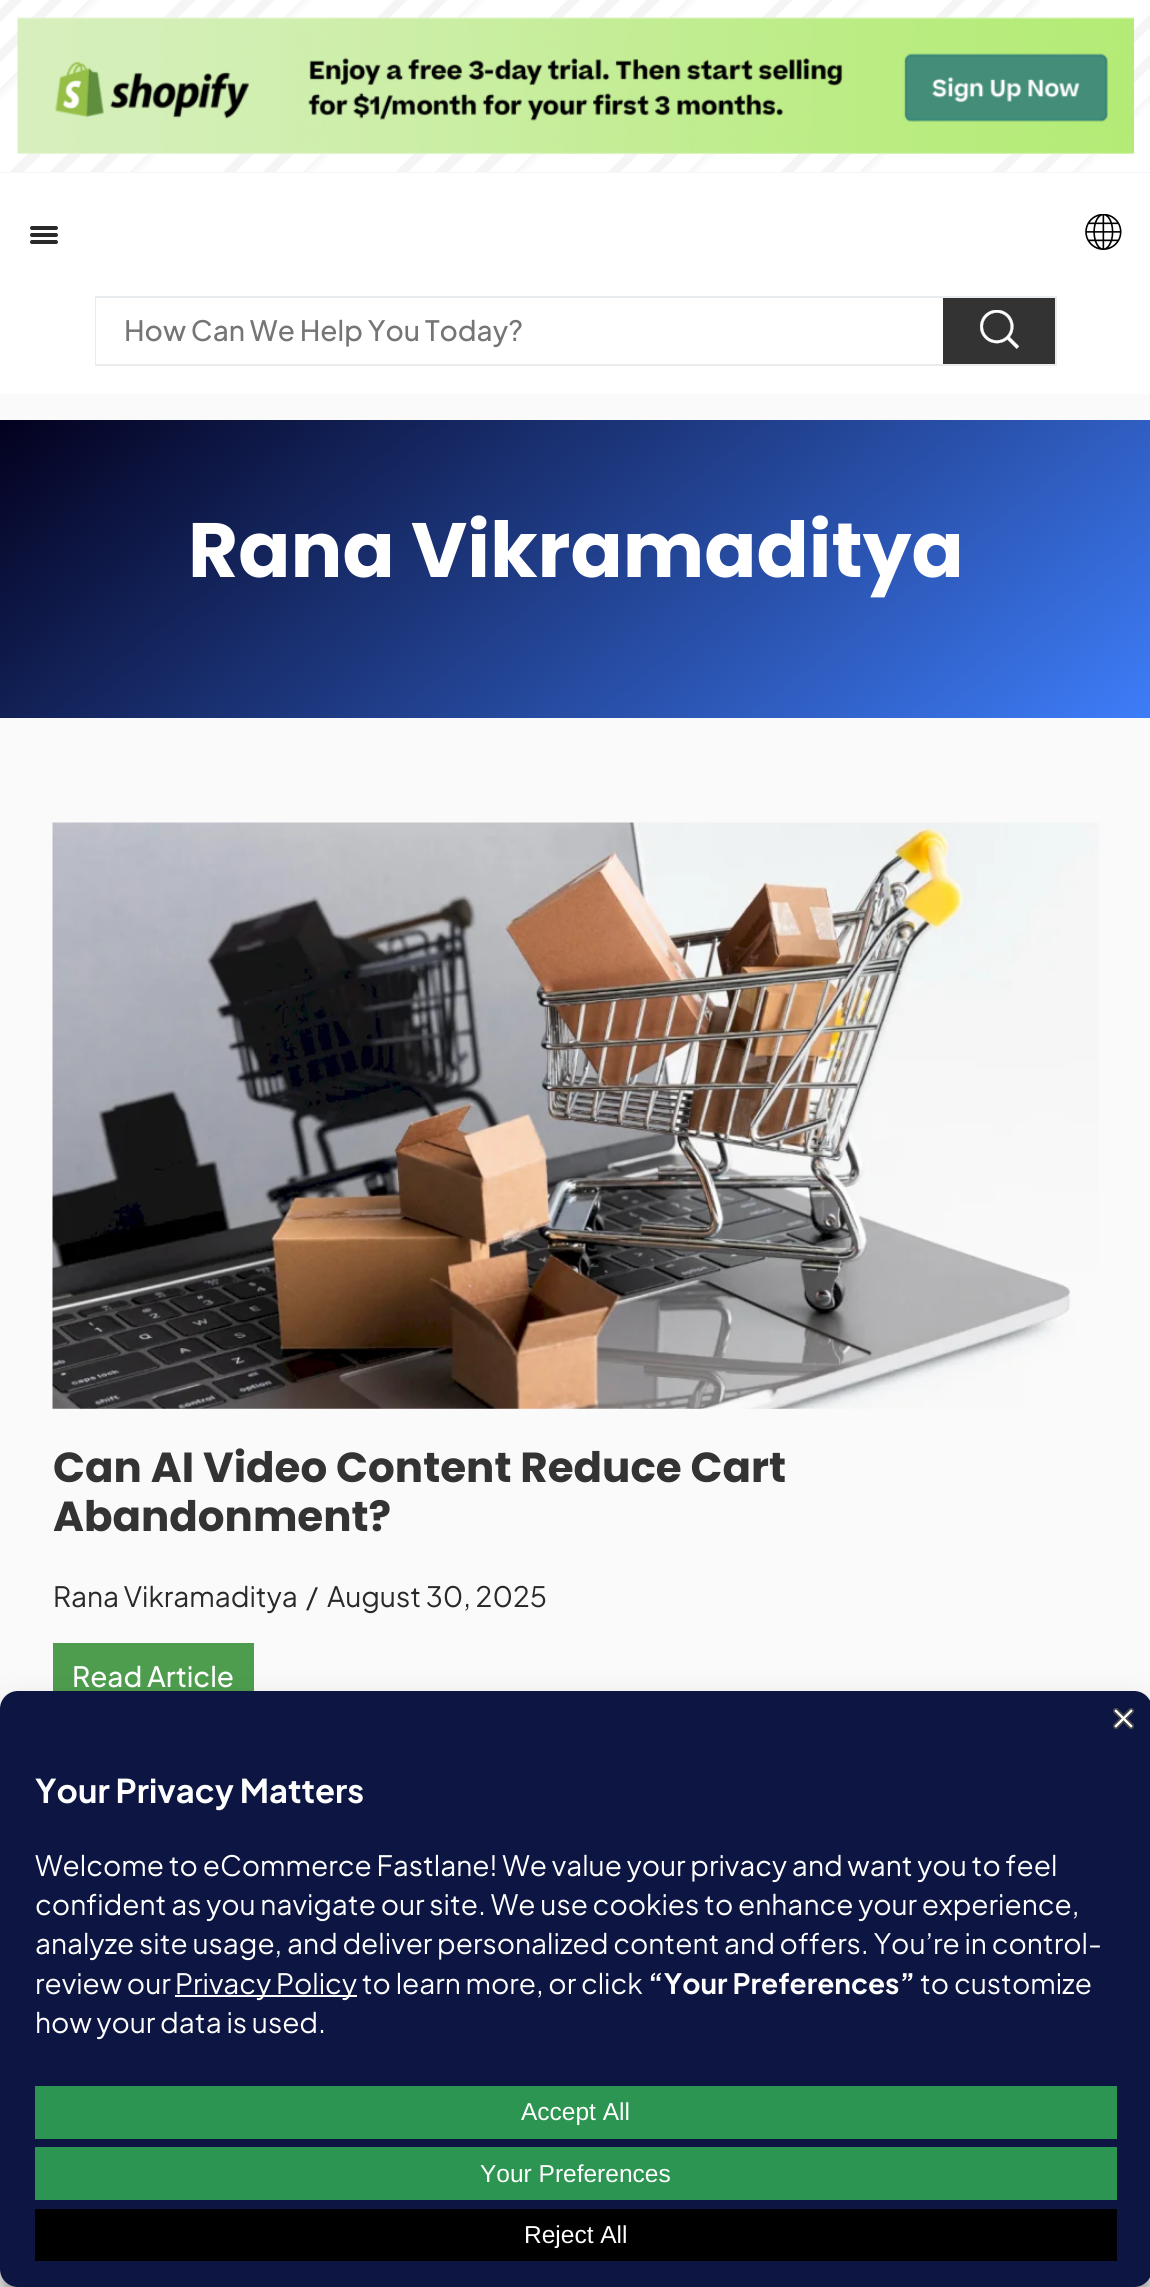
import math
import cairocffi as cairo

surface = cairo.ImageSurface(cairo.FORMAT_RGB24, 1150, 2287)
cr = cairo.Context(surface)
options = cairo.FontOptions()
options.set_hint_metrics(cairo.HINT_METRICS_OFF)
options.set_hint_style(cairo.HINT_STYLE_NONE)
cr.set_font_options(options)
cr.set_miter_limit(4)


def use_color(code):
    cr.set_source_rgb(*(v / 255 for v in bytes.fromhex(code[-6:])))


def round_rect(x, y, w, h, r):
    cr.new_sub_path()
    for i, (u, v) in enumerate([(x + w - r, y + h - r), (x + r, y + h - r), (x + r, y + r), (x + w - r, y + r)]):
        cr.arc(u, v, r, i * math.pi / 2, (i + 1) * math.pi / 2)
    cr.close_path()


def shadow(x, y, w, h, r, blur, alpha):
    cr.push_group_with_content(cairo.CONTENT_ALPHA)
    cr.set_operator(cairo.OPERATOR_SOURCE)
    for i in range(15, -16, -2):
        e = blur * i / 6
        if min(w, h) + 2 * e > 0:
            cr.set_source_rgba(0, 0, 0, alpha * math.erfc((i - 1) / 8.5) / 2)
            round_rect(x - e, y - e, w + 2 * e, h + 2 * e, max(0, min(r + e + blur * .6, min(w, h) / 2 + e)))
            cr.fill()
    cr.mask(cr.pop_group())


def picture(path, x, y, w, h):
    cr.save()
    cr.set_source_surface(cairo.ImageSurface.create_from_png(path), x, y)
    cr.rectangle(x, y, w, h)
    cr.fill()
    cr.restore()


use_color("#fafafa")
cr.paint()
gradient = cairo.LinearGradient(907, 417, 243, -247)
gradient.add_color_stop_rgba(0, 1, 1, 1, 1)
gradient.add_color_stop_rgba(0.01, 1, 1, 1, 1)
gradient.add_color_stop_rgba(0.01, 0.961, 0.961, 0.961, 1)
gradient.add_color_stop_rgba(0.01, 0.961, 0.961, 0.961, 1)
gradient.add_color_stop_rgba(0.01, 1, 1, 1, 1)
gradient.add_color_stop_rgba(0.03, 1, 1, 1, 1)
gradient.add_color_stop_rgba(0.03, 0.961, 0.961, 0.961, 1)
gradient.add_color_stop_rgba(0.03, 0.961, 0.961, 0.961, 1)
gradient.add_color_stop_rgba(0.03, 1, 1, 1, 1)
gradient.add_color_stop_rgba(0.04, 1, 1, 1, 1)
gradient.add_color_stop_rgba(0.04, 0.961, 0.961, 0.961, 1)
gradient.add_color_stop_rgba(0.04, 0.961, 0.961, 0.961, 1)
gradient.add_color_stop_rgba(0.04, 1, 1, 1, 1)
gradient.add_color_stop_rgba(0.05, 1, 1, 1, 1)
gradient.add_color_stop_rgba(0.06, 0.961, 0.961, 0.961, 1)
gradient.add_color_stop_rgba(0.06, 0.961, 0.961, 0.961, 1)
gradient.add_color_stop_rgba(0.06, 1, 1, 1, 1)
gradient.add_color_stop_rgba(0.07, 1, 1, 1, 1)
gradient.add_color_stop_rgba(0.07, 0.961, 0.961, 0.961, 1)
gradient.add_color_stop_rgba(0.07, 0.961, 0.961, 0.961, 1)
gradient.add_color_stop_rgba(0.07, 1, 1, 1, 1)
gradient.add_color_stop_rgba(0.08, 1, 1, 1, 1)
gradient.add_color_stop_rgba(0.08, 0.961, 0.961, 0.961, 1)
gradient.add_color_stop_rgba(0.09, 0.961, 0.961, 0.961, 1)
gradient.add_color_stop_rgba(0.09, 1, 1, 1, 1)
gradient.add_color_stop_rgba(0.1, 1, 1, 1, 1)
gradient.add_color_stop_rgba(0.1, 0.961, 0.961, 0.961, 1)
gradient.add_color_stop_rgba(0.1, 0.961, 0.961, 0.961, 1)
gradient.add_color_stop_rgba(0.1, 1, 1, 1, 1)
gradient.add_color_stop_rgba(0.11, 1, 1, 1, 1)
gradient.add_color_stop_rgba(0.11, 0.961, 0.961, 0.961, 1)
gradient.add_color_stop_rgba(0.12, 0.961, 0.961, 0.961, 1)
gradient.add_color_stop_rgba(0.12, 1, 1, 1, 1)
gradient.add_color_stop_rgba(0.13, 1, 1, 1, 1)
gradient.add_color_stop_rgba(0.13, 0.961, 0.961, 0.961, 1)
gradient.add_color_stop_rgba(0.13, 0.961, 0.961, 0.961, 1)
gradient.add_color_stop_rgba(0.13, 1, 1, 1, 1)
gradient.add_color_stop_rgba(0.14, 1, 1, 1, 1)
gradient.add_color_stop_rgba(0.14, 0.961, 0.961, 0.961, 1)
gradient.add_color_stop_rgba(0.14, 0.961, 0.961, 0.961, 1)
gradient.add_color_stop_rgba(0.14, 1, 1, 1, 1)
gradient.add_color_stop_rgba(0.16, 1, 1, 1, 1)
gradient.add_color_stop_rgba(0.16, 0.961, 0.961, 0.961, 1)
gradient.add_color_stop_rgba(0.16, 0.961, 0.961, 0.961, 1)
gradient.add_color_stop_rgba(0.16, 1, 1, 1, 1)
gradient.add_color_stop_rgba(0.17, 1, 1, 1, 1)
gradient.add_color_stop_rgba(0.17, 0.961, 0.961, 0.961, 1)
gradient.add_color_stop_rgba(0.17, 0.961, 0.961, 0.961, 1)
gradient.add_color_stop_rgba(0.17, 1, 1, 1, 1)
gradient.add_color_stop_rgba(0.19, 1, 1, 1, 1)
gradient.add_color_stop_rgba(0.19, 0.961, 0.961, 0.961, 1)
gradient.add_color_stop_rgba(0.19, 0.961, 0.961, 0.961, 1)
gradient.add_color_stop_rgba(0.19, 1, 1, 1, 1)
gradient.add_color_stop_rgba(0.2, 1, 1, 1, 1)
gradient.add_color_stop_rgba(0.2, 0.961, 0.961, 0.961, 1)
gradient.add_color_stop_rgba(0.2, 0.961, 0.961, 0.961, 1)
gradient.add_color_stop_rgba(0.2, 1, 1, 1, 1)
gradient.add_color_stop_rgba(0.21, 1, 1, 1, 1)
gradient.add_color_stop_rgba(0.22, 0.961, 0.961, 0.961, 1)
gradient.add_color_stop_rgba(0.22, 0.961, 0.961, 0.961, 1)
gradient.add_color_stop_rgba(0.22, 1, 1, 1, 1)
gradient.add_color_stop_rgba(0.23, 1, 1, 1, 1)
gradient.add_color_stop_rgba(0.23, 0.961, 0.961, 0.961, 1)
gradient.add_color_stop_rgba(0.23, 0.961, 0.961, 0.961, 1)
gradient.add_color_stop_rgba(0.23, 1, 1, 1, 1)
gradient.add_color_stop_rgba(0.24, 1, 1, 1, 1)
gradient.add_color_stop_rgba(0.24, 0.961, 0.961, 0.961, 1)
gradient.add_color_stop_rgba(0.25, 0.961, 0.961, 0.961, 1)
gradient.add_color_stop_rgba(0.25, 1, 1, 1, 1)
gradient.add_color_stop_rgba(0.26, 1, 1, 1, 1)
gradient.add_color_stop_rgba(0.26, 0.961, 0.961, 0.961, 1)
gradient.add_color_stop_rgba(0.26, 0.961, 0.961, 0.961, 1)
gradient.add_color_stop_rgba(0.26, 1, 1, 1, 1)
gradient.add_color_stop_rgba(0.27, 1, 1, 1, 1)
gradient.add_color_stop_rgba(0.27, 0.961, 0.961, 0.961, 1)
gradient.add_color_stop_rgba(0.28, 0.961, 0.961, 0.961, 1)
gradient.add_color_stop_rgba(0.28, 1, 1, 1, 1)
gradient.add_color_stop_rgba(0.29, 1, 1, 1, 1)
gradient.add_color_stop_rgba(0.29, 0.961, 0.961, 0.961, 1)
gradient.add_color_stop_rgba(0.29, 0.961, 0.961, 0.961, 1)
gradient.add_color_stop_rgba(0.29, 1, 1, 1, 1)
gradient.add_color_stop_rgba(0.3, 1, 1, 1, 1)
gradient.add_color_stop_rgba(0.3, 0.961, 0.961, 0.961, 1)
gradient.add_color_stop_rgba(0.3, 0.961, 0.961, 0.961, 1)
gradient.add_color_stop_rgba(0.3, 1, 1, 1, 1)
gradient.add_color_stop_rgba(0.32, 1, 1, 1, 1)
gradient.add_color_stop_rgba(0.32, 0.961, 0.961, 0.961, 1)
gradient.add_color_stop_rgba(0.32, 0.961, 0.961, 0.961, 1)
gradient.add_color_stop_rgba(0.32, 1, 1, 1, 1)
gradient.add_color_stop_rgba(0.33, 1, 1, 1, 1)
gradient.add_color_stop_rgba(0.33, 0.961, 0.961, 0.961, 1)
gradient.add_color_stop_rgba(0.33, 0.961, 0.961, 0.961, 1)
gradient.add_color_stop_rgba(0.33, 1, 1, 1, 1)
gradient.add_color_stop_rgba(0.34, 1, 1, 1, 1)
gradient.add_color_stop_rgba(0.35, 0.961, 0.961, 0.961, 1)
gradient.add_color_stop_rgba(0.35, 0.961, 0.961, 0.961, 1)
gradient.add_color_stop_rgba(0.35, 1, 1, 1, 1)
gradient.add_color_stop_rgba(0.36, 1, 1, 1, 1)
gradient.add_color_stop_rgba(0.36, 0.961, 0.961, 0.961, 1)
gradient.add_color_stop_rgba(0.36, 0.961, 0.961, 0.961, 1)
gradient.add_color_stop_rgba(0.36, 1, 1, 1, 1)
gradient.add_color_stop_rgba(0.37, 1, 1, 1, 1)
gradient.add_color_stop_rgba(0.37, 0.961, 0.961, 0.961, 1)
gradient.add_color_stop_rgba(0.38, 0.961, 0.961, 0.961, 1)
gradient.add_color_stop_rgba(0.38, 1, 1, 1, 1)
gradient.add_color_stop_rgba(0.39, 1, 1, 1, 1)
gradient.add_color_stop_rgba(0.39, 0.961, 0.961, 0.961, 1)
gradient.add_color_stop_rgba(0.39, 0.961, 0.961, 0.961, 1)
gradient.add_color_stop_rgba(0.39, 1, 1, 1, 1)
gradient.add_color_stop_rgba(0.4, 1, 1, 1, 1)
gradient.add_color_stop_rgba(0.4, 0.961, 0.961, 0.961, 1)
gradient.add_color_stop_rgba(0.41, 0.961, 0.961, 0.961, 1)
gradient.add_color_stop_rgba(0.41, 1, 1, 1, 1)
gradient.add_color_stop_rgba(0.42, 1, 1, 1, 1)
gradient.add_color_stop_rgba(0.42, 0.961, 0.961, 0.961, 1)
gradient.add_color_stop_rgba(0.42, 0.961, 0.961, 0.961, 1)
gradient.add_color_stop_rgba(0.42, 1, 1, 1, 1)
gradient.add_color_stop_rgba(0.43, 1, 1, 1, 1)
gradient.add_color_stop_rgba(0.43, 0.961, 0.961, 0.961, 1)
gradient.add_color_stop_rgba(0.43, 0.961, 0.961, 0.961, 1)
gradient.add_color_stop_rgba(0.43, 1, 1, 1, 1)
gradient.add_color_stop_rgba(0.45, 1, 1, 1, 1)
gradient.add_color_stop_rgba(0.45, 0.961, 0.961, 0.961, 1)
gradient.add_color_stop_rgba(0.45, 0.961, 0.961, 0.961, 1)
gradient.add_color_stop_rgba(0.45, 1, 1, 1, 1)
gradient.add_color_stop_rgba(0.46, 1, 1, 1, 1)
gradient.add_color_stop_rgba(0.46, 0.961, 0.961, 0.961, 1)
gradient.add_color_stop_rgba(0.46, 0.961, 0.961, 0.961, 1)
gradient.add_color_stop_rgba(0.46, 1, 1, 1, 1)
gradient.add_color_stop_rgba(0.47, 1, 1, 1, 1)
gradient.add_color_stop_rgba(0.48, 0.961, 0.961, 0.961, 1)
gradient.add_color_stop_rgba(0.48, 0.961, 0.961, 0.961, 1)
gradient.add_color_stop_rgba(0.48, 1, 1, 1, 1)
gradient.add_color_stop_rgba(0.49, 1, 1, 1, 1)
gradient.add_color_stop_rgba(0.49, 0.961, 0.961, 0.961, 1)
gradient.add_color_stop_rgba(0.49, 0.961, 0.961, 0.961, 1)
gradient.add_color_stop_rgba(0.49, 1, 1, 1, 1)
gradient.add_color_stop_rgba(0.5, 1, 1, 1, 1)
gradient.add_color_stop_rgba(0.5, 0.961, 0.961, 0.961, 1)
gradient.add_color_stop_rgba(0.51, 0.961, 0.961, 0.961, 1)
gradient.add_color_stop_rgba(0.51, 1, 1, 1, 1)
gradient.add_color_stop_rgba(0.52, 1, 1, 1, 1)
gradient.add_color_stop_rgba(0.52, 0.961, 0.961, 0.961, 1)
gradient.add_color_stop_rgba(0.52, 0.961, 0.961, 0.961, 1)
gradient.add_color_stop_rgba(0.52, 1, 1, 1, 1)
gradient.add_color_stop_rgba(0.53, 1, 1, 1, 1)
gradient.add_color_stop_rgba(0.53, 0.961, 0.961, 0.961, 1)
gradient.add_color_stop_rgba(0.54, 0.961, 0.961, 0.961, 1)
gradient.add_color_stop_rgba(0.54, 1, 1, 1, 1)
gradient.add_color_stop_rgba(0.55, 1, 1, 1, 1)
gradient.add_color_stop_rgba(0.55, 0.961, 0.961, 0.961, 1)
gradient.add_color_stop_rgba(0.55, 0.961, 0.961, 0.961, 1)
gradient.add_color_stop_rgba(0.55, 1, 1, 1, 1)
gradient.add_color_stop_rgba(0.56, 1, 1, 1, 1)
gradient.add_color_stop_rgba(0.56, 0.961, 0.961, 0.961, 1)
gradient.add_color_stop_rgba(0.57, 0.961, 0.961, 0.961, 1)
gradient.add_color_stop_rgba(0.57, 1, 1, 1, 1)
gradient.add_color_stop_rgba(0.58, 1, 1, 1, 1)
gradient.add_color_stop_rgba(0.58, 0.961, 0.961, 0.961, 1)
gradient.add_color_stop_rgba(0.58, 0.961, 0.961, 0.961, 1)
gradient.add_color_stop_rgba(0.58, 1, 1, 1, 1)
gradient.add_color_stop_rgba(0.59, 1, 1, 1, 1)
gradient.add_color_stop_rgba(0.59, 0.961, 0.961, 0.961, 1)
gradient.add_color_stop_rgba(0.59, 0.961, 0.961, 0.961, 1)
gradient.add_color_stop_rgba(0.59, 1, 1, 1, 1)
gradient.add_color_stop_rgba(0.61, 1, 1, 1, 1)
gradient.add_color_stop_rgba(0.61, 0.961, 0.961, 0.961, 1)
gradient.add_color_stop_rgba(0.61, 0.961, 0.961, 0.961, 1)
gradient.add_color_stop_rgba(0.61, 1, 1, 1, 1)
gradient.add_color_stop_rgba(0.62, 1, 1, 1, 1)
gradient.add_color_stop_rgba(0.62, 0.961, 0.961, 0.961, 1)
gradient.add_color_stop_rgba(0.62, 0.961, 0.961, 0.961, 1)
gradient.add_color_stop_rgba(0.62, 1, 1, 1, 1)
gradient.add_color_stop_rgba(0.63, 1, 1, 1, 1)
gradient.add_color_stop_rgba(0.64, 0.961, 0.961, 0.961, 1)
gradient.add_color_stop_rgba(0.64, 0.961, 0.961, 0.961, 1)
gradient.add_color_stop_rgba(0.64, 1, 1, 1, 1)
gradient.add_color_stop_rgba(0.65, 1, 1, 1, 1)
gradient.add_color_stop_rgba(0.65, 0.961, 0.961, 0.961, 1)
gradient.add_color_stop_rgba(0.65, 0.961, 0.961, 0.961, 1)
gradient.add_color_stop_rgba(0.65, 1, 1, 1, 1)
gradient.add_color_stop_rgba(0.66, 1, 1, 1, 1)
gradient.add_color_stop_rgba(0.66, 0.961, 0.961, 0.961, 1)
gradient.add_color_stop_rgba(0.67, 0.961, 0.961, 0.961, 1)
gradient.add_color_stop_rgba(0.67, 1, 1, 1, 1)
gradient.add_color_stop_rgba(0.68, 1, 1, 1, 1)
gradient.add_color_stop_rgba(0.68, 0.961, 0.961, 0.961, 1)
gradient.add_color_stop_rgba(0.68, 0.961, 0.961, 0.961, 1)
gradient.add_color_stop_rgba(0.68, 1, 1, 1, 1)
gradient.add_color_stop_rgba(0.69, 1, 1, 1, 1)
gradient.add_color_stop_rgba(0.69, 0.961, 0.961, 0.961, 1)
gradient.add_color_stop_rgba(0.7, 0.961, 0.961, 0.961, 1)
gradient.add_color_stop_rgba(0.7, 1, 1, 1, 1)
gradient.add_color_stop_rgba(0.71, 1, 1, 1, 1)
gradient.add_color_stop_rgba(0.71, 0.961, 0.961, 0.961, 1)
gradient.add_color_stop_rgba(0.71, 0.961, 0.961, 0.961, 1)
gradient.add_color_stop_rgba(0.71, 1, 1, 1, 1)
gradient.add_color_stop_rgba(0.72, 1, 1, 1, 1)
gradient.add_color_stop_rgba(0.72, 0.961, 0.961, 0.961, 1)
gradient.add_color_stop_rgba(0.72, 0.961, 0.961, 0.961, 1)
gradient.add_color_stop_rgba(0.72, 1, 1, 1, 1)
gradient.add_color_stop_rgba(0.74, 1, 1, 1, 1)
gradient.add_color_stop_rgba(0.74, 0.961, 0.961, 0.961, 1)
gradient.add_color_stop_rgba(0.74, 0.961, 0.961, 0.961, 1)
gradient.add_color_stop_rgba(0.74, 1, 1, 1, 1)
gradient.add_color_stop_rgba(0.75, 1, 1, 1, 1)
gradient.add_color_stop_rgba(0.75, 0.961, 0.961, 0.961, 1)
gradient.add_color_stop_rgba(0.75, 0.961, 0.961, 0.961, 1)
gradient.add_color_stop_rgba(0.75, 1, 1, 1, 1)
gradient.add_color_stop_rgba(0.76, 1, 1, 1, 1)
gradient.add_color_stop_rgba(0.77, 0.961, 0.961, 0.961, 1)
gradient.add_color_stop_rgba(0.77, 0.961, 0.961, 0.961, 1)
gradient.add_color_stop_rgba(0.77, 1, 1, 1, 1)
gradient.add_color_stop_rgba(0.78, 1, 1, 1, 1)
gradient.add_color_stop_rgba(0.78, 0.961, 0.961, 0.961, 1)
gradient.add_color_stop_rgba(0.78, 0.961, 0.961, 0.961, 1)
gradient.add_color_stop_rgba(0.78, 1, 1, 1, 1)
gradient.add_color_stop_rgba(0.79, 1, 1, 1, 1)
gradient.add_color_stop_rgba(0.79, 0.961, 0.961, 0.961, 1)
gradient.add_color_stop_rgba(0.8, 0.961, 0.961, 0.961, 1)
gradient.add_color_stop_rgba(0.8, 1, 1, 1, 1)
gradient.add_color_stop_rgba(0.81, 1, 1, 1, 1)
gradient.add_color_stop_rgba(0.81, 0.961, 0.961, 0.961, 1)
gradient.add_color_stop_rgba(0.81, 0.961, 0.961, 0.961, 1)
gradient.add_color_stop_rgba(0.81, 1, 1, 1, 1)
gradient.add_color_stop_rgba(0.82, 1, 1, 1, 1)
gradient.add_color_stop_rgba(0.82, 0.961, 0.961, 0.961, 1)
gradient.add_color_stop_rgba(0.83, 0.961, 0.961, 0.961, 1)
gradient.add_color_stop_rgba(0.83, 1, 1, 1, 1)
gradient.add_color_stop_rgba(0.84, 1, 1, 1, 1)
gradient.add_color_stop_rgba(0.84, 0.961, 0.961, 0.961, 1)
gradient.add_color_stop_rgba(0.84, 0.961, 0.961, 0.961, 1)
gradient.add_color_stop_rgba(0.84, 1, 1, 1, 1)
gradient.add_color_stop_rgba(0.85, 1, 1, 1, 1)
gradient.add_color_stop_rgba(0.85, 0.961, 0.961, 0.961, 1)
gradient.add_color_stop_rgba(0.86, 0.961, 0.961, 0.961, 1)
gradient.add_color_stop_rgba(0.86, 1, 1, 1, 1)
gradient.add_color_stop_rgba(0.87, 1, 1, 1, 1)
gradient.add_color_stop_rgba(0.87, 0.961, 0.961, 0.961, 1)
gradient.add_color_stop_rgba(0.87, 0.961, 0.961, 0.961, 1)
gradient.add_color_stop_rgba(0.87, 1, 1, 1, 1)
gradient.add_color_stop_rgba(0.88, 1, 1, 1, 1)
gradient.add_color_stop_rgba(0.88, 0.961, 0.961, 0.961, 1)
gradient.add_color_stop_rgba(0.88, 0.961, 0.961, 0.961, 1)
gradient.add_color_stop_rgba(0.88, 1, 1, 1, 1)
gradient.add_color_stop_rgba(0.9, 1, 1, 1, 1)
gradient.add_color_stop_rgba(0.9, 0.961, 0.961, 0.961, 1)
gradient.add_color_stop_rgba(0.9, 0.961, 0.961, 0.961, 1)
gradient.add_color_stop_rgba(0.9, 1, 1, 1, 1)
gradient.add_color_stop_rgba(0.91, 1, 1, 1, 1)
gradient.add_color_stop_rgba(0.91, 0.961, 0.961, 0.961, 1)
gradient.add_color_stop_rgba(0.91, 0.961, 0.961, 0.961, 1)
gradient.add_color_stop_rgba(0.91, 1, 1, 1, 1)
gradient.add_color_stop_rgba(0.92, 1, 1, 1, 1)
gradient.add_color_stop_rgba(0.93, 0.961, 0.961, 0.961, 1)
gradient.add_color_stop_rgba(0.93, 0.961, 0.961, 0.961, 1)
gradient.add_color_stop_rgba(0.93, 1, 1, 1, 1)
gradient.add_color_stop_rgba(0.94, 1, 1, 1, 1)
gradient.add_color_stop_rgba(0.94, 0.961, 0.961, 0.961, 1)
gradient.add_color_stop_rgba(0.94, 0.961, 0.961, 0.961, 1)
gradient.add_color_stop_rgba(0.94, 1, 1, 1, 1)
gradient.add_color_stop_rgba(0.95, 1, 1, 1, 1)
gradient.add_color_stop_rgba(0.95, 0.961, 0.961, 0.961, 1)
gradient.add_color_stop_rgba(0.96, 0.961, 0.961, 0.961, 1)
gradient.add_color_stop_rgba(0.96, 1, 1, 1, 1)
gradient.add_color_stop_rgba(0.97, 1, 1, 1, 1)
gradient.add_color_stop_rgba(0.97, 0.961, 0.961, 0.961, 1)
gradient.add_color_stop_rgba(0.97, 0.961, 0.961, 0.961, 1)
gradient.add_color_stop_rgba(0.97, 1, 1, 1, 1)
gradient.add_color_stop_rgba(0.98, 1, 1, 1, 1)
gradient.add_color_stop_rgba(0.98, 0.961, 0.961, 0.961, 1)
gradient.add_color_stop_rgba(0.99, 0.961, 0.961, 0.961, 1)
gradient.add_color_stop_rgba(0.99, 1, 1, 1, 1)
gradient.add_color_stop_rgba(1, 1, 1, 1, 1)
gradient.add_color_stop_rgba(1, 0.961, 0.961, 0.961, 1)
gradient.add_color_stop_rgba(1, 0.961, 0.961, 0.961, 1)
cr.set_source(gradient)
cr.rectangle(0, 0, 1150, 172)
cr.fill()
use_color("#f5f5fa")
cr.rectangle(0, 172, 1150, 1)
cr.fill()
picture("img1.png", 17, 17, 1117, 137)
use_color("#ffffff")
cr.rectangle(0, 173, 1150, 221)
cr.fill()
use_color("#292929")
round_rect(30, 226, 28, 4, 2)
cr.fill()
round_rect(30, 233, 28, 4, 2)
cr.fill()
round_rect(30, 240, 28, 4, 2)
cr.fill()
picture("img2.png", 1085, 214, 37, 36)
cr.rectangle(96, 297, 960, 68)
use_color("#e9ecef")
cr.stroke()
use_color("#ffffff")
cr.rectangle(96, 298, 1, 66)
cr.fill()
cr.select_font_face("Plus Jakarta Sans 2 Medium")
cr.set_font_size(28)
use_color("#757575")
cr.move_to(124, 341)
cr.show_text("How Can We Help You Today?")
use_color("#333333")
cr.rectangle(943, 298, 112, 66)
cr.fill()
picture("img3.png", 980, 310, 39, 39)
gradient = cairo.LinearGradient(285, 197, 866, 940)
gradient.add_color_stop_rgba(0, 0.012, 0.004, 0.118, 1)
gradient.add_color_stop_rgba(1, 0.243, 0.49, 0.976, 1)
cr.set_source(gradient)
cr.rectangle(0, 420, 1150, 298)
cr.fill()
cr.select_font_face("Poppins", cairo.FONT_SLANT_NORMAL, cairo.FONT_WEIGHT_BOLD)
cr.set_font_size(77)
use_color("#ffffff")
cr.move_to(188, 577)
cr.show_text("Rana Vikramaditya")
picture("img4.png", 52, 822, 1047, 587)
cr.set_font_size(42)
use_color("#333333")
cr.move_to(53, 1482)
cr.show_text("Can AI Video Content Reduce Cart")
cr.move_to(53, 1531)
cr.show_text("Abandonment?")
cr.select_font_face("Plus Jakarta Sans")
cr.set_font_size(28)
use_color("#292929")
cr.move_to(53, 1607)
cr.show_text("Rana Vikramaditya")
cr.move_to(306, 1607)
cr.show_text("/")
cr.move_to(327, 1607)
cr.show_text("August 30, 2025")
use_color("#4e9d4e")
cr.rectangle(53, 1643, 201, 48)
cr.fill()
cr.select_font_face("Plus Jakarta Sans Medium")
use_color("#ffffff")
cr.move_to(72, 1687)
cr.show_text("Read Article")
use_color("#000000")
shadow(0, 1701, 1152, 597, 18, 5, 0.23)
shadow(0, 1708, 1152, 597, 18, 17.5, 0.19)
use_color("#0d1542")
round_rect(0, 1691, 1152, 596, 18)
cr.fill()
picture("img5.png", 1113, 1708, 21, 21)
cr.select_font_face("Plus Jakarta Sans", cairo.FONT_SLANT_NORMAL, cairo.FONT_WEIGHT_BOLD)
cr.set_font_size(32.75)
use_color("#ffffff")
cr.move_to(35, 1803)
cr.show_text("Your Privacy Matters")
cr.select_font_face("Plus Jakarta Sans 2")
cr.set_font_size(28)
cr.move_to(35, 1876)
cr.show_text("Welcome to eCommerce Fastlane! We value your privacy and want you to feel")
cr.move_to(35, 1915)
cr.show_text("confident as you navigate our site. We use cookies to enhance your experience,")
cr.move_to(35, 1954)
cr.show_text("analyze site usage, and deliver personalized content and offers. You’re in control-")
cr.move_to(35, 1994)
cr.show_text("review our")
cr.rectangle(175, 1995, 182, 2)
cr.fill()
cr.move_to(175, 1994)
cr.show_text("Privacy Policy to learn more, or click")
cr.select_font_face("Plus Jakarta Sans", cairo.FONT_SLANT_NORMAL, cairo.FONT_WEIGHT_BOLD)
cr.move_to(648, 1994)
cr.show_text("“Your Preferences”")
cr.select_font_face("Plus Jakarta Sans 2")
cr.move_to(920, 1994)
cr.show_text("to customize")
cr.move_to(35, 2033)
cr.show_text("how your data is used.")
use_color("#2c9552")
cr.rectangle(35, 2086, 1082, 53)
cr.fill()
cr.select_font_face("Liberation Sans")
cr.set_font_size(24.5)
use_color("#ffffff")
cr.move_to(521, 2120)
cr.show_text("Accept All")
use_color("#2c9552")
cr.rectangle(35, 2147, 1082, 53)
cr.fill()
use_color("#ffffff")
cr.move_to(480, 2182)
cr.show_text("Your Preferences")
use_color("#000000")
cr.rectangle(35, 2209, 1082, 52)
cr.fill()
use_color("#ffffff")
cr.move_to(524, 2243)
cr.show_text("Reject All")
surface.write_to_png("result.png")
